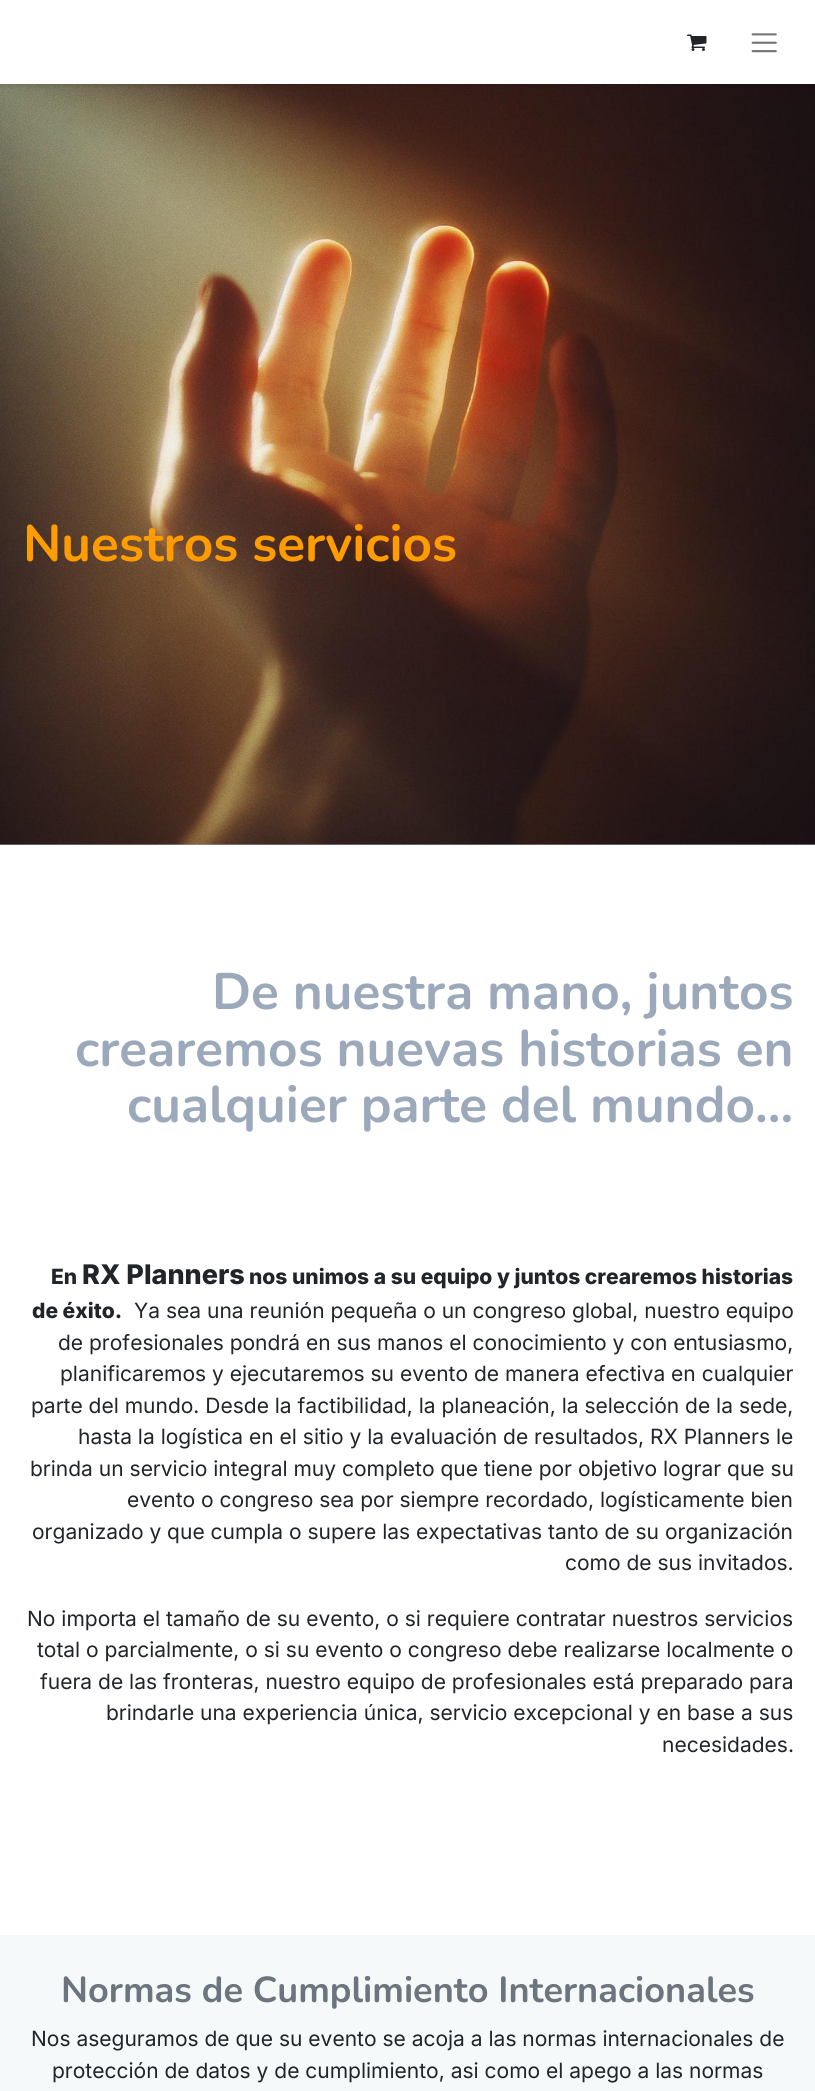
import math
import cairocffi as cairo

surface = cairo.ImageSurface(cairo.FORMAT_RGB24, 815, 2091)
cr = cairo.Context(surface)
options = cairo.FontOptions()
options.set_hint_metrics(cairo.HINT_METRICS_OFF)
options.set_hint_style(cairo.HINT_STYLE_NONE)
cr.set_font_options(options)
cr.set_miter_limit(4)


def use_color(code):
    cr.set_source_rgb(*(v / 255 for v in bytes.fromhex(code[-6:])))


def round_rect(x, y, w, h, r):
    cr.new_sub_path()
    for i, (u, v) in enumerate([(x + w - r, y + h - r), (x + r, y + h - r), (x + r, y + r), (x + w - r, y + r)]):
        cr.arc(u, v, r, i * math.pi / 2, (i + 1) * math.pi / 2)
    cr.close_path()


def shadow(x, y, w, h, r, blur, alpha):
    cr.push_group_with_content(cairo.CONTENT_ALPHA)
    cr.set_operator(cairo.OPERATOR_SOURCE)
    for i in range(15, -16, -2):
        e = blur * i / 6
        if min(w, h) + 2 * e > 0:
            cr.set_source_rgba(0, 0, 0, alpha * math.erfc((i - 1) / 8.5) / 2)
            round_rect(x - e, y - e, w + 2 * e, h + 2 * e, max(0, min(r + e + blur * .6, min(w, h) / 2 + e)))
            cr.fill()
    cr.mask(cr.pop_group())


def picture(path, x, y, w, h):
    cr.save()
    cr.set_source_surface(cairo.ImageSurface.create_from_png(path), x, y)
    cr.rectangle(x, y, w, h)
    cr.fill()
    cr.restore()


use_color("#ffffff")
cr.paint()
use_color("#9ba9bb")
cr.rectangle(0, 844, 815, 1)
cr.fill()
picture("img3.png", 0, 84, 815, 761)
cr.save()
cr.rectangle(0, 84, 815, 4)
cr.clip()
use_color("#000000")
shadow(0, 2, 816, 84, 0, 2, 0.1)
cr.restore()
picture("img1.png", 687, 34, 20, 17)
picture("img2.png", 751, 33, 26, 20)
cr.select_font_face("Nunito", cairo.FONT_SLANT_NORMAL, cairo.FONT_WEIGHT_BOLD)
cr.set_font_size(51.3)
use_color("#ff9c00")
cr.move_to(23, 561)
cr.show_text("Nuestros servicios")
use_color("#9ba9bb")
cr.move_to(212, 1009)
cr.show_text("De nuestra mano, juntos")
cr.move_to(75, 1066)
cr.show_text("crearemos nuevas historias en")
cr.move_to(127, 1122)
cr.show_text("cualquier parte del mundo...")
cr.select_font_face("Inter ExtraBold")
cr.set_font_size(21)
use_color("#212529")
cr.move_to(51, 1284)
cr.show_text("En")
cr.set_font_size(27)
cr.move_to(82, 1284)
cr.show_text("RX Planners")
cr.set_font_size(21)
cr.move_to(249, 1284)
cr.show_text("nos unimos a su equipo y juntos crearemos historias")
cr.move_to(32, 1318)
cr.show_text("de éxito.")
cr.select_font_face("Inter")
cr.move_to(134, 1318)
cr.show_text("Ya sea una reunión pequeña o un congreso global, nuestro equipo")
cr.move_to(58, 1350)
cr.show_text("de profesionales pondrá en sus manos el conocimiento y con entusiasmo,")
cr.move_to(60, 1381)
cr.show_text("planificaremos y ejecutaremos su evento de manera efectiva en cualquier")
cr.move_to(31, 1413)
cr.show_text("parte del mundo. Desde la factibilidad, la planeación, la selección de la sede,")
cr.move_to(78, 1444)
cr.show_text("hasta la logística en el sitio y la evaluación de resultados, RX Planners le")
cr.move_to(30, 1476)
cr.show_text("brinda un servicio integral muy completo que tiene por objetivo lograr que su")
cr.move_to(127, 1507)
cr.show_text("evento o congreso sea por siempre recordado, logísticamente bien")
cr.move_to(32, 1539)
cr.show_text("organizado y que cumpla o supere las expectativas tanto de su organización")
cr.move_to(565, 1570)
cr.show_text("como de sus invitados.")
cr.move_to(27, 1626)
cr.show_text("No importa el tamaño de su evento, o si requiere contratar nuestros servicios")
cr.move_to(37, 1657)
cr.show_text("total o parcialmente, o si su evento o congreso debe realizarse localmente o")
cr.move_to(40, 1689)
cr.show_text("fuera de las fronteras, nuestro equipo de profesionales está preparado para")
cr.move_to(106, 1720)
cr.show_text("brindarle una experiencia única, servicio excepcional y en base a sus")
cr.move_to(662, 1752)
cr.show_text("necesidades.")
use_color("#f5f9f9")
cr.rectangle(0, 1935, 815, 156)
cr.fill()
cr.select_font_face("Nunito", cairo.FONT_SLANT_NORMAL, cairo.FONT_WEIGHT_BOLD)
cr.set_font_size(36.1)
use_color("#6c757d")
cr.move_to(61, 2002)
cr.show_text("Normas de Cumplimiento Internacionales")
cr.select_font_face("Inter")
cr.set_font_size(21)
use_color("#212529")
cr.move_to(31, 2046)
cr.show_text("Nos aseguramos de que su evento se acoja a las normas internacionales de")
cr.move_to(52, 2078)
cr.show_text("protección de datos y de cumplimiento, asi como el apego a las normas")
surface.write_to_png("result.png")
